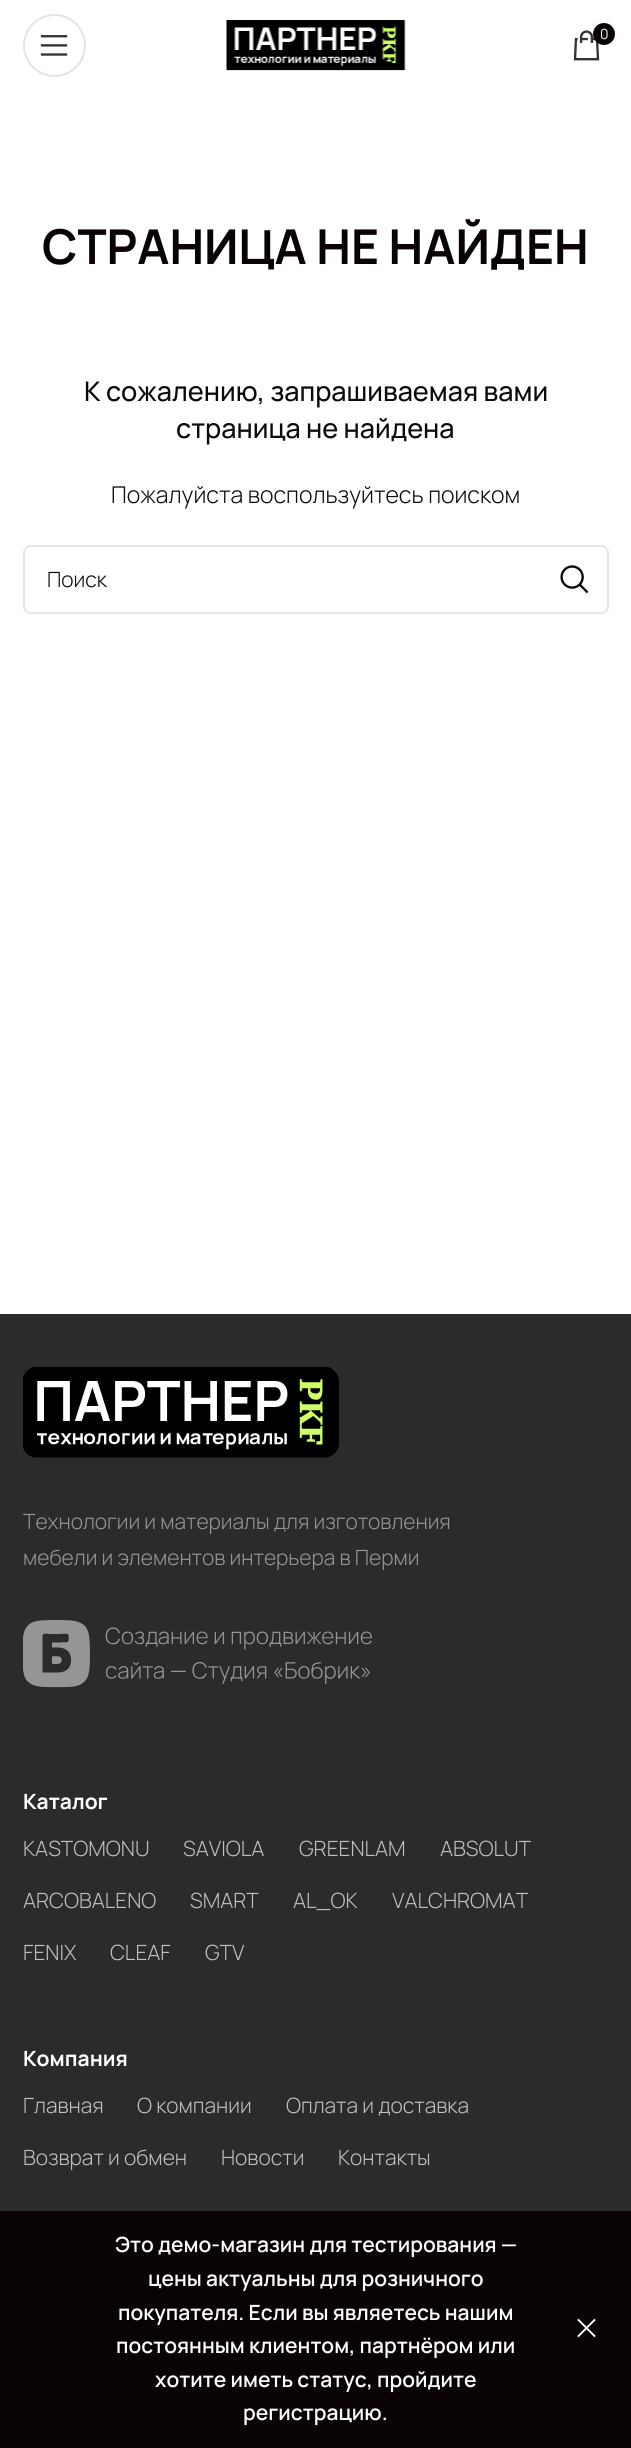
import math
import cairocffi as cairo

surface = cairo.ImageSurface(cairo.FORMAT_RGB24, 631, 2448)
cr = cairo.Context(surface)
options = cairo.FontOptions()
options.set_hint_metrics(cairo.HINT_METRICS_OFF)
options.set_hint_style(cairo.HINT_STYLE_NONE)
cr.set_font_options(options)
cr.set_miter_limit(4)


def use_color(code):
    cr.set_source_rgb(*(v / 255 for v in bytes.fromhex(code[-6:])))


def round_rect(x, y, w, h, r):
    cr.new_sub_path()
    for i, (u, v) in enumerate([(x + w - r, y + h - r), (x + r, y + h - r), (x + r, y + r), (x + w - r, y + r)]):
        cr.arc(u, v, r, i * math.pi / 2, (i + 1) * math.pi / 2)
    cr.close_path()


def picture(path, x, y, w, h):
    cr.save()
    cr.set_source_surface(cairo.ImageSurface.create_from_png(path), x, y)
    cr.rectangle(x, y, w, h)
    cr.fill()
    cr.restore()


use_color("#ffffff")
cr.paint()
cr.arc(54.5, 45.5, 30.5, 0, 2 * math.pi)
use_color("#e4e4e4")
cr.stroke()
picture("img1.png", 40, 35, 28, 21)
picture("img2.png", 226, 20, 180, 51)
picture("img3.png", 573, 30, 27, 31)
use_color("#0a0303")
cr.arc(604, 34, 11, 0, 2 * math.pi)
cr.fill()
cr.select_font_face("Manrope")
cr.set_font_size(14)
use_color("#ffffff")
cr.move_to(600, 39)
cr.show_text("0")
cr.select_font_face("Manrope", cairo.FONT_SLANT_NORMAL, cairo.FONT_WEIGHT_BOLD)
cr.set_font_size(48)
use_color("#0a0303")
cr.move_to(42, 264)
cr.show_text("СТРАНИЦА НЕ НАЙДЕН")
cr.select_font_face("Manrope Medium")
cr.set_font_size(27)
use_color("#0a0a0a")
cr.move_to(84, 401)
cr.show_text("К сожалению, запрашиваемая вами")
cr.move_to(176, 438)
cr.show_text("страница не найдена")
cr.select_font_face("Manrope Light")
cr.set_font_size(23.1)
cr.move_to(111, 503)
cr.show_text("Пожалуйста воспользуйтесь поиском")
round_rect(24, 546, 584, 67, 7)
use_color("#e6e6e6")
cr.stroke()
cr.set_font_size(21)
use_color("#0a0a0a")
cr.move_to(47, 587)
cr.show_text("Поиск")
picture("img4.png", 560, 565, 29, 29)
use_color("#2b2b2b")
cr.rectangle(0, 1314, 631, 897)
cr.fill()
picture("img5.png", 23, 1367, 316, 91)
use_color("#959595")
cr.move_to(23, 1529)
cr.show_text("Технологии и материалы для изготовления")
cr.move_to(23, 1565)
cr.show_text("мебели и элементов интерьера в Перми")
picture("img6.png", 23, 1620, 349, 68)
cr.select_font_face("Manrope", cairo.FONT_SLANT_NORMAL, cairo.FONT_WEIGHT_BOLD)
use_color("#ffffff")
cr.move_to(23, 1809)
cr.show_text("Каталог")
cr.select_font_face("Manrope Light")
use_color("#bfbfbf")
cr.move_to(23, 1856)
cr.show_text("KASTOMONU")
cr.move_to(183, 1856)
cr.show_text("SAVIOLA")
cr.move_to(299, 1856)
cr.show_text("GREENLAM")
cr.move_to(440, 1856)
cr.show_text("ABSOLUT")
cr.move_to(23, 1908)
cr.show_text("ARCOBALENO")
cr.move_to(190, 1908)
cr.show_text("SMART")
cr.move_to(293, 1908)
cr.show_text("AL_OK")
cr.move_to(392, 1908)
cr.show_text("VALCHROMAT")
cr.move_to(23, 1960)
cr.show_text("FENIX")
cr.move_to(110, 1960)
cr.show_text("CLEAF")
cr.move_to(205, 1960)
cr.show_text("GTV")
cr.select_font_face("Manrope", cairo.FONT_SLANT_NORMAL, cairo.FONT_WEIGHT_BOLD)
use_color("#ffffff")
cr.move_to(23, 2066)
cr.show_text("Компания")
cr.select_font_face("Manrope Light")
use_color("#bfbfbf")
cr.move_to(23, 2113)
cr.show_text("Главная")
cr.move_to(137, 2113)
cr.show_text("О компании")
cr.move_to(286, 2113)
cr.show_text("Оплата и доставка")
cr.move_to(23, 2165)
cr.show_text("Возврат и обмен")
cr.move_to(221, 2165)
cr.show_text("Новости")
cr.move_to(338, 2165)
cr.show_text("Контакты")
use_color("#0a0303")
cr.rectangle(0, 2211, 631, 237)
cr.fill()
cr.select_font_face("Manrope SemiBold")
use_color("#ffffff")
cr.move_to(115, 2252)
cr.show_text("Это демо-магазин для тестирования —")
cr.move_to(148, 2286)
cr.show_text("цены актуальны для розничного")
cr.move_to(118, 2320)
cr.show_text("покупателя. Если вы являетесь нашим")
picture("img7.png", 577, 2318, 19, 20)
cr.move_to(116, 2353)
cr.show_text("постоянным клиентом, партнёром или")
cr.move_to(155, 2387)
cr.show_text("хотите иметь статус, пройдите")
cr.move_to(243, 2420)
cr.show_text("регистрацию.")
surface.write_to_png("result.png")
